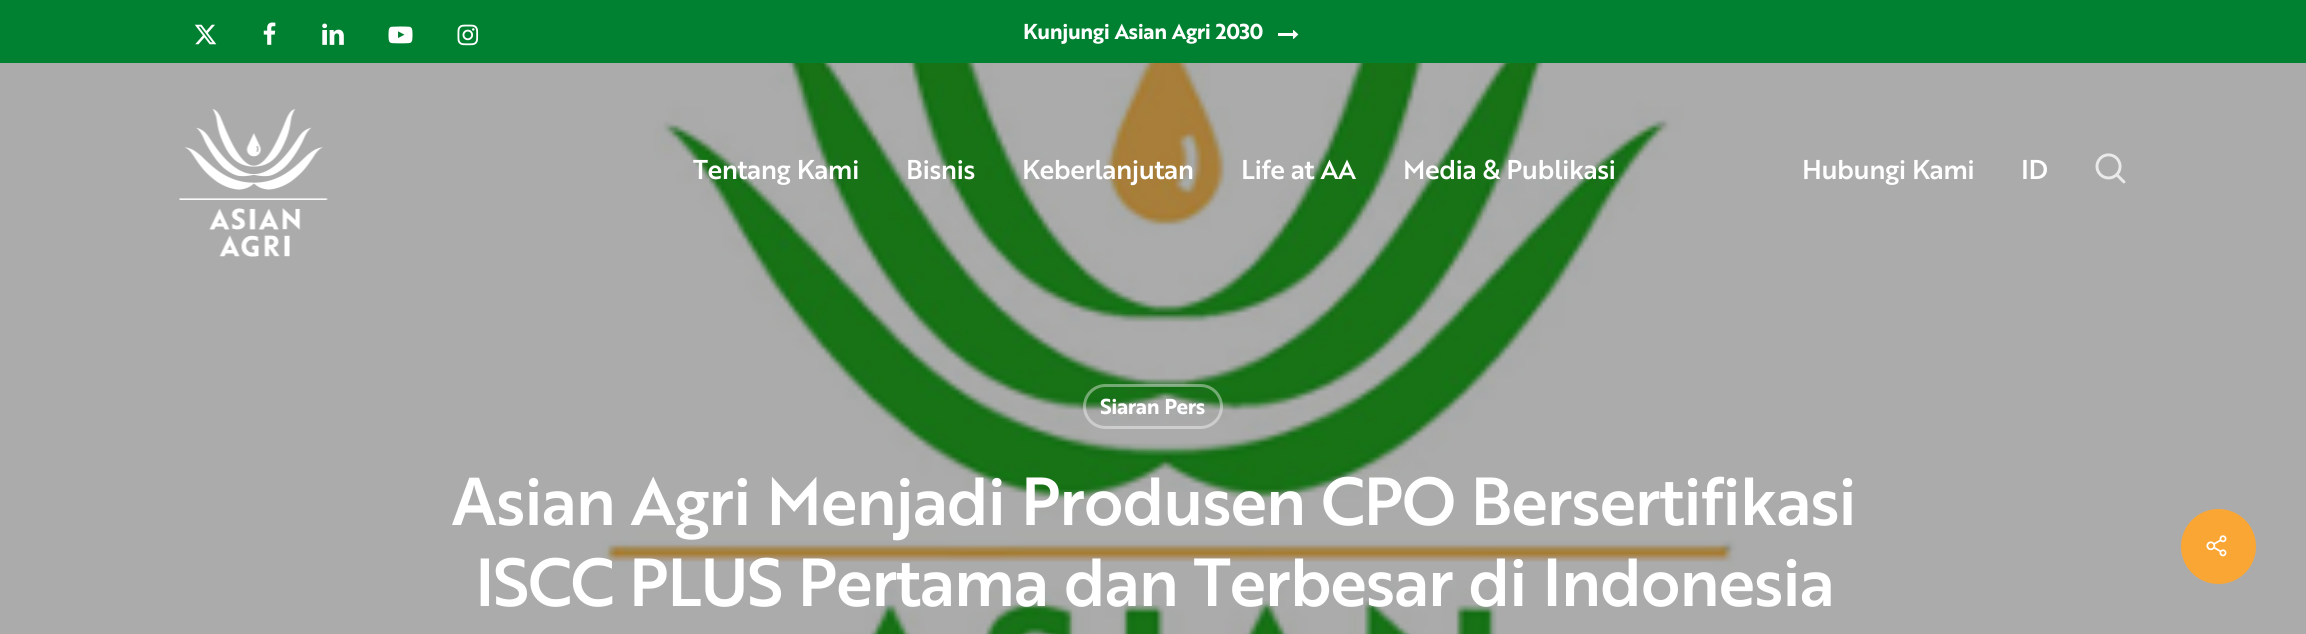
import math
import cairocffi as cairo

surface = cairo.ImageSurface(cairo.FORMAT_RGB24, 2306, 634)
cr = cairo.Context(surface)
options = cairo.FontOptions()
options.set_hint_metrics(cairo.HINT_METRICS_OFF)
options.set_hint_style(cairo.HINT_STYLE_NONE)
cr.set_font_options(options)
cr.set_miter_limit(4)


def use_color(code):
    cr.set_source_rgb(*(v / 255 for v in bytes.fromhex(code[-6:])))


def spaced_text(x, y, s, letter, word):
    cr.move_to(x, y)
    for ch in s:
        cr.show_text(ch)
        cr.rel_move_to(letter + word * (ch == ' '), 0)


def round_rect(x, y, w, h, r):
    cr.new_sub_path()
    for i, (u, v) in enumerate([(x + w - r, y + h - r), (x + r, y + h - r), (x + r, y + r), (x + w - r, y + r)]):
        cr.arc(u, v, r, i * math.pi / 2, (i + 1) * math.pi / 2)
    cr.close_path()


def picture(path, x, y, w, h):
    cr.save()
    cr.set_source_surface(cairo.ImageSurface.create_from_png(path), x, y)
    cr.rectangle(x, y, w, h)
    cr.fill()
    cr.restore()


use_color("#ffffff")
cr.paint()
use_color("#008031")
cr.rectangle(0, 0, 2306, 63)
cr.fill()
picture("img1.png", 194, 24, 23, 21)
picture("img2.png", 263, 22, 13, 23)
picture("img3.png", 322, 23, 22, 22)
picture("img4.png", 388, 26, 25, 18)
picture("img5.png", 457, 24, 22, 22)
cr.select_font_face("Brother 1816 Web", cairo.FONT_SLANT_NORMAL, cairo.FONT_WEIGHT_BOLD)
cr.set_font_size(21)
use_color("#ffffff")
spaced_text(1023, 39, "Kunjungi Asian Agri 2030", -0.4, 0)
picture("img6.png", 1278, 30, 21, 9)
picture("img9.png", 0, 63, 2306, 571)
picture("img7.png", 179, 109, 149, 148)
cr.select_font_face("Brother 1816 Web Medium")
cr.set_font_size(26.5)
spaced_text(693, 179, "Tentang Kami", -0.5, 0)
spaced_text(906, 179, "Bisnis", -0.5, 0)
spaced_text(1022, 179, "Keberlanjutan", -0.5, 0)
spaced_text(1241, 179, "Life at AA", -0.5, 0)
spaced_text(1403, 179, "Media & Publikasi", -0.5, 0)
spaced_text(1802, 179, "Hubungi Kami", -0.5, 0)
spaced_text(2021, 179, "ID", -0.5, 0)
picture("img8.png", 2095, 153, 31, 31)
round_rect(1084.5, 385.5, 137, 42, 21)
cr.set_source_rgba(1, 1, 1, 0.4)
cr.set_line_width(3)
cr.stroke()
cr.select_font_face("Brother 1816 Web", cairo.FONT_SLANT_NORMAL, cairo.FONT_WEIGHT_BOLD)
cr.set_font_size(21)
use_color("#ffffff")
spaced_text(1100, 414, "Siaran Pers", -0.4, 0)
cr.select_font_face("Noto Sans SemiBold")
cr.set_font_size(66)
spaced_text(452, 525, "A", -1.3, 0)
cr.select_font_face("Brother 1816 Web Medium")
spaced_text(496, 525, "sian Agri Menjadi Produsen CPO Bersertifikasi", -1.3, 0)
spaced_text(475, 606, "ISCC PLUS Pertama dan Terbesar di Indonesia", -1.3, 0)
use_color("#faa634")
cr.new_path()
cr.arc(2218.5, 546.5, 37.5, 0, 2 * math.pi)
cr.fill()
picture("img10.png", 2206, 535, 21, 22)
surface.write_to_png("result.png")
